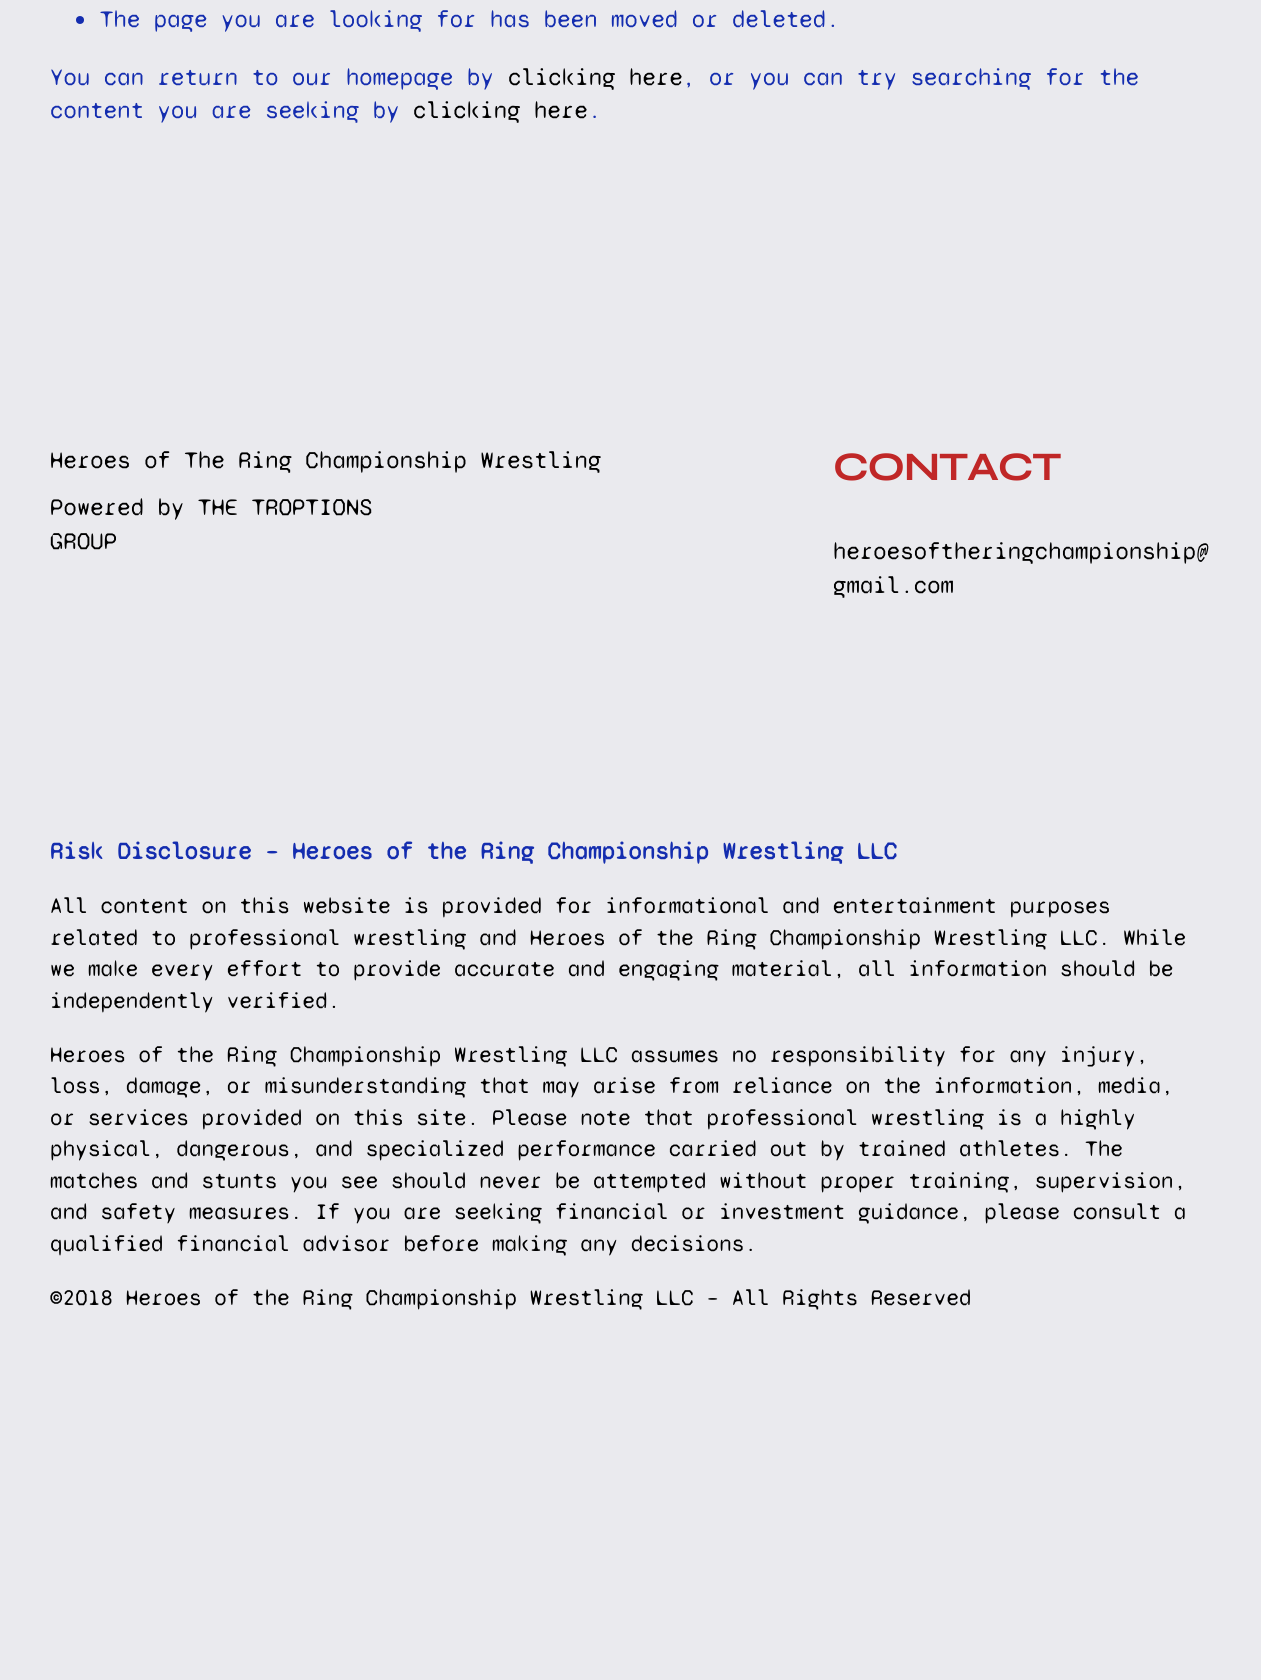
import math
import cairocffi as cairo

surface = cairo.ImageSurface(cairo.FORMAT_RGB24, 1261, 1680)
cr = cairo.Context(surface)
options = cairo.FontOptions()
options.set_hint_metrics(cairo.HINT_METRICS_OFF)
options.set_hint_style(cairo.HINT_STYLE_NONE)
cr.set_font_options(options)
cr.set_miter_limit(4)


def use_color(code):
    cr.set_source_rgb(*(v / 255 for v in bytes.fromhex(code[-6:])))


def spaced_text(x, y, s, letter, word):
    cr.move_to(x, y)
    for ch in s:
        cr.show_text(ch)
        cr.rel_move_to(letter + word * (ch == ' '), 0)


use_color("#eaeaee")
cr.paint()
use_color("#142daf")
cr.arc(80, 20, 4, 0, 2 * math.pi)
cr.fill()
cr.select_font_face("Syne Mono")
cr.set_font_size(24)
spaced_text(100, 27, "The page you are looking for has been moved or deleted.", 0.25, 0)
spaced_text(50, 85, "You can return to our homepage by", 0.25, 0)
use_color("#000000")
spaced_text(508, 85, "clicking here", 0.25, 0)
use_color("#142daf")
spaced_text(682, 85, ", or you can try searching for the", 0.25, 0)
spaced_text(50, 118, "content you are seeking by", 0.25, 0)
use_color("#000000")
spaced_text(413, 118, "clicking here", 0.25, 0)
use_color("#142daf")
spaced_text(588, 118, ".", 0.25, 0)
use_color("#000000")
spaced_text(50, 468, "Heroes of The Ring Championship Wrestling", 0.25, 0)
cr.select_font_face("Syne", cairo.FONT_SLANT_NORMAL, cairo.FONT_WEIGHT_BOLD)
cr.set_font_size(40.5)
use_color("#c02727")
spaced_text(833, 480, "CONTACT", -1.25, 0)
cr.select_font_face("Syne Mono")
cr.set_font_size(24)
use_color("#000000")
spaced_text(833, 559, "heroesoftheringchampionship@", 0.25, 0)
spaced_text(833, 593, "gmail.com", 0.25, 0)
spaced_text(50, 515, "Powered by THE TROPTIONS", 0.25, 0)
spaced_text(50, 549, "GROUP", 0.25, 0)
cr.select_font_face("Syne Mono", cairo.FONT_SLANT_NORMAL, cairo.FONT_WEIGHT_BOLD)
use_color("#142daf")
spaced_text(50, 859, "Risk Disclosure – Heroes of the Ring Championship Wrestling LLC", 0.25, 0)
cr.select_font_face("Syne Mono")
cr.set_font_size(22.5)
use_color("#000000")
spaced_text(50, 913, "All content on this website is provided for informational and entertainment purposes", 0.25, 0)
spaced_text(50, 945, "related to professional wrestling and Heroes of the Ring Championship Wrestling LLC. While", 0.25, 0)
spaced_text(50, 976, "we make every effort to provide accurate and engaging material, all information should be", 0.25, 0)
spaced_text(50, 1008, "independently verified.", 0.25, 0)
spaced_text(50, 1062, "Heroes of the Ring Championship Wrestling LLC assumes no responsibility for any injury,", 0.25, 0)
spaced_text(50, 1093, "loss, damage, or misunderstanding that may arise from reliance on the information, media,", 0.25, 0)
spaced_text(50, 1125, "or services provided on this site. Please note that professional wrestling is a highly", 0.25, 0)
spaced_text(50, 1156, "physical, dangerous, and specialized performance carried out by trained athletes. The", 0.25, 0)
spaced_text(50, 1188, "matches and stunts you see should never be attempted without proper training, supervision,", 0.25, 0)
spaced_text(50, 1219, "and safety measures. If you are seeking financial or investment guidance, please consult a", 0.25, 0)
spaced_text(50, 1251, "qualified financial advisor before making any decisions.", 0.25, 0)
spaced_text(50, 1305, "©2018 Heroes of the Ring Championship Wrestling LLC – All Rights Reserved", 0.25, 0)
surface.write_to_png("result.png")
